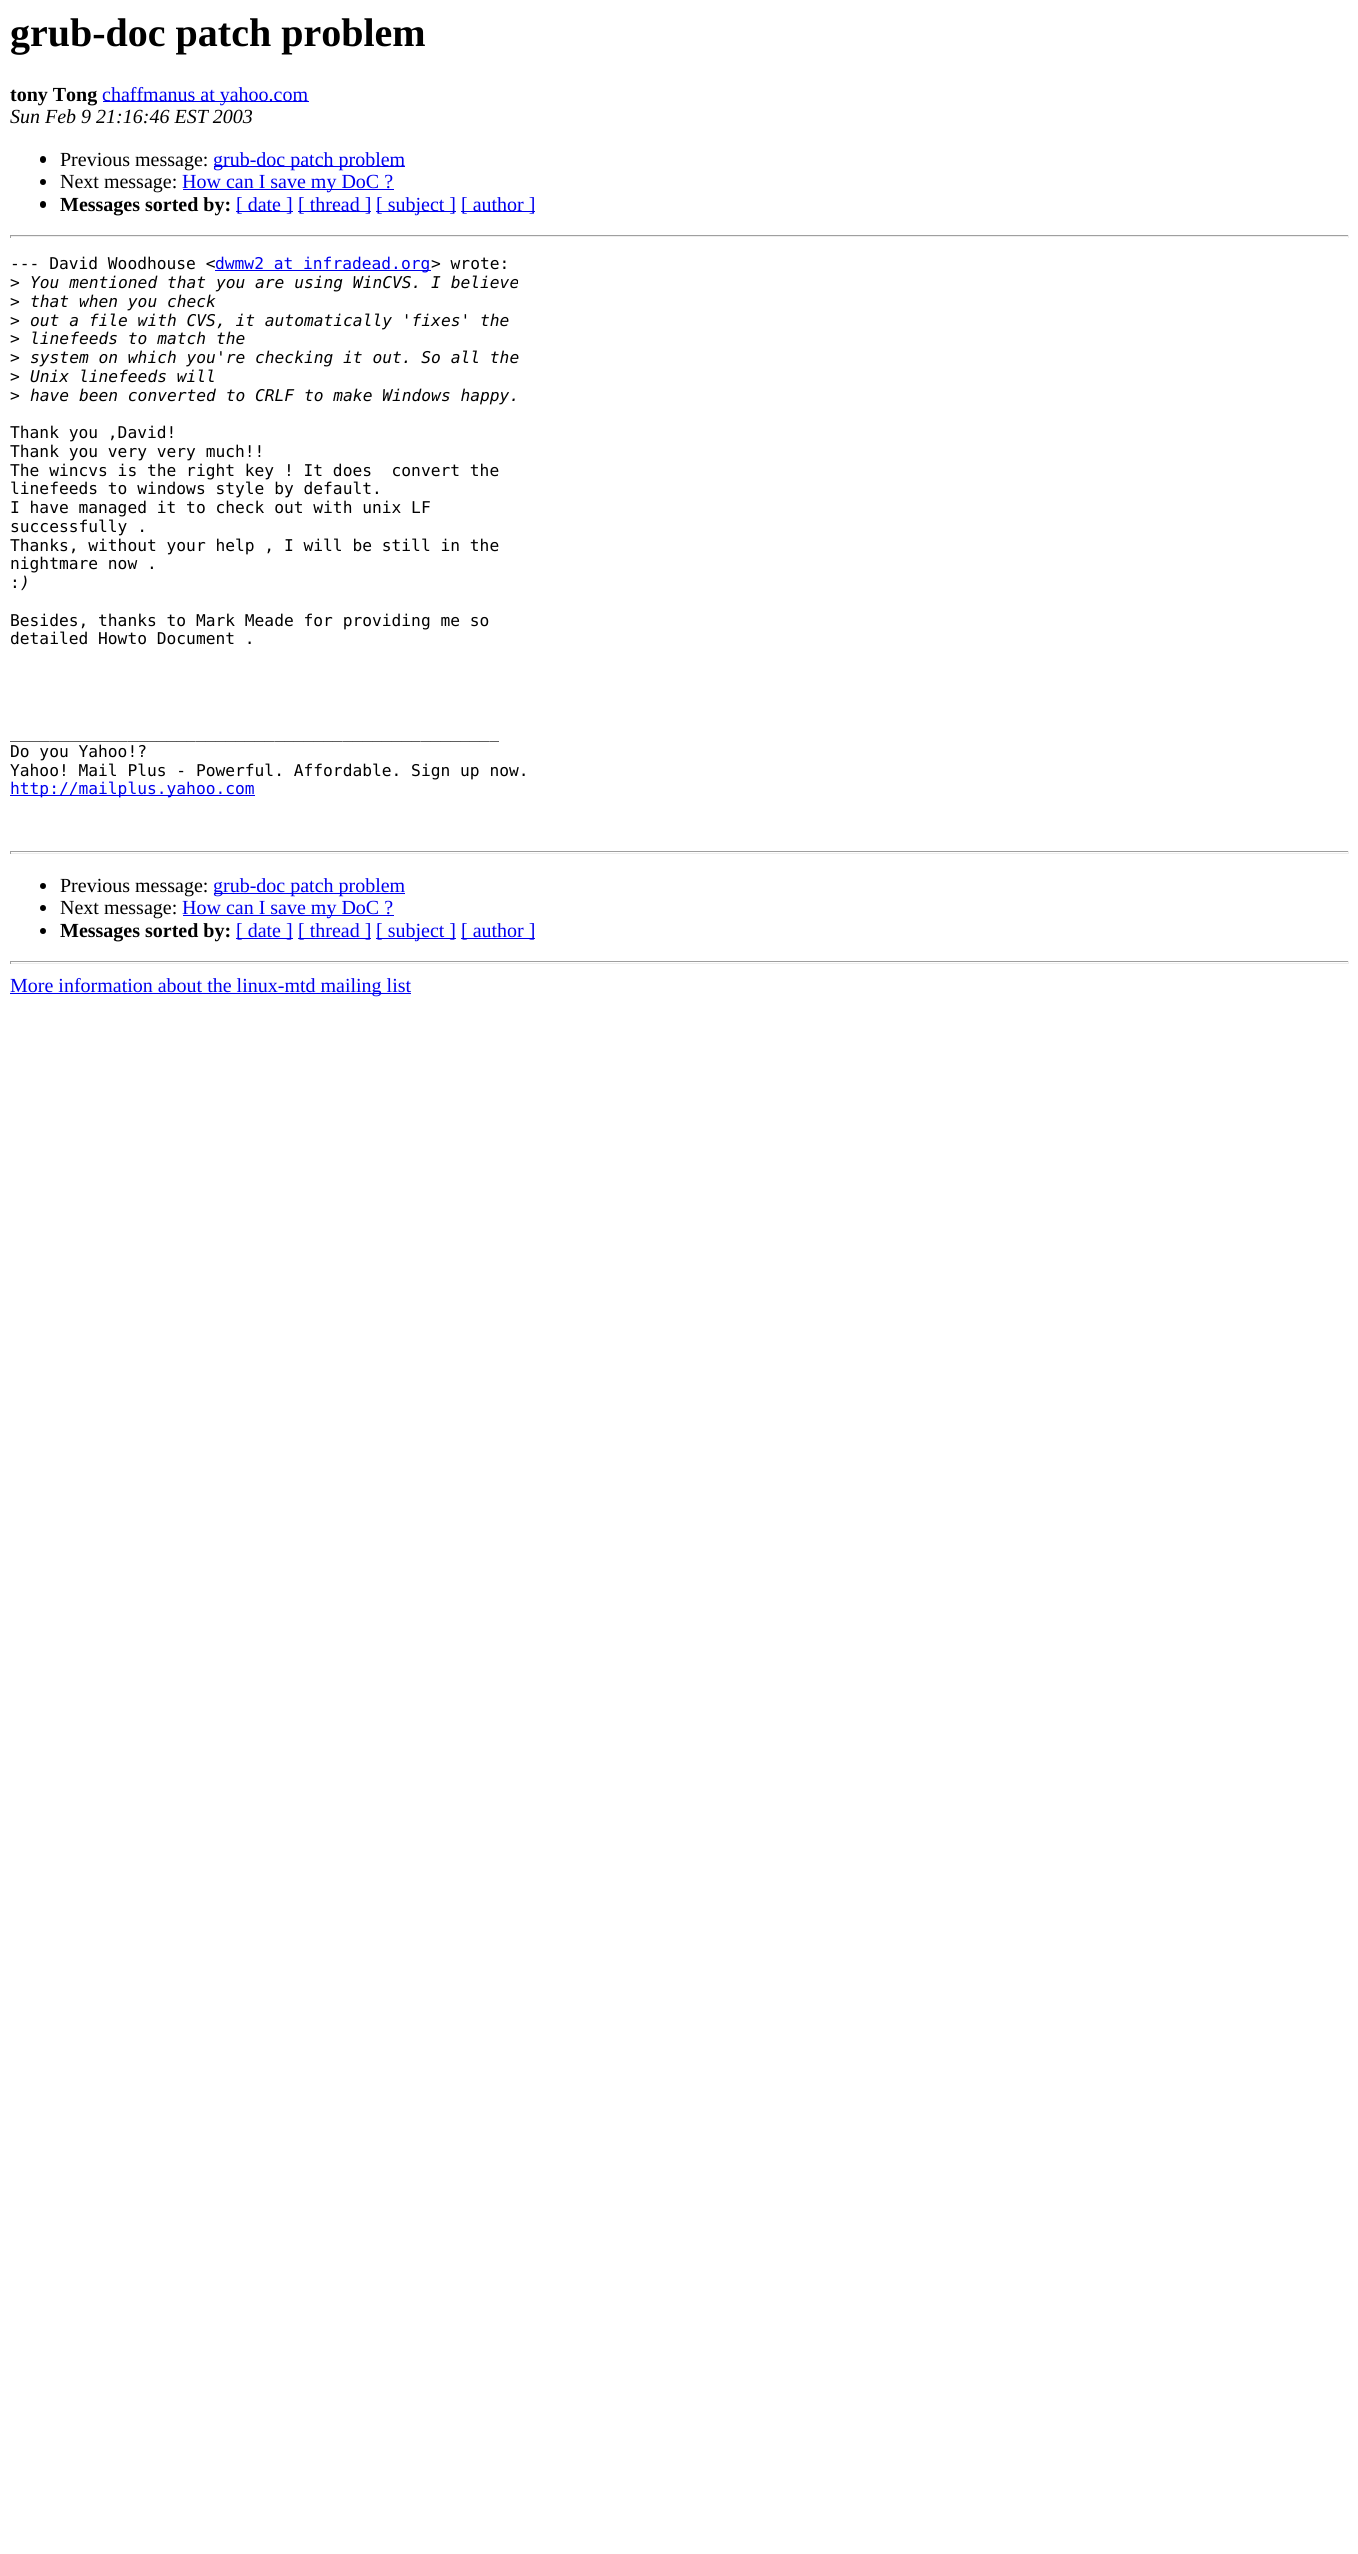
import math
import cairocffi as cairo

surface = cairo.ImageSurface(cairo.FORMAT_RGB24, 1358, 2554)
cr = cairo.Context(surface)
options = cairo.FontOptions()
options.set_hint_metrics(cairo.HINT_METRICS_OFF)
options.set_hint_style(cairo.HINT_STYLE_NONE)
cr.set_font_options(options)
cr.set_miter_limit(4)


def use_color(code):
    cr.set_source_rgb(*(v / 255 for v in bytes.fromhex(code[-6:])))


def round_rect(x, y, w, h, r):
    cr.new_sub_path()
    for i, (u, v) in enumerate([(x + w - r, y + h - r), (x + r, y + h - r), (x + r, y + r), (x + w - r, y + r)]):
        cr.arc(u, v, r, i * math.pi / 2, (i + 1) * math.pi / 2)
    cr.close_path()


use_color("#ffffff")
cr.paint()
cr.select_font_face("Liberation Serif", cairo.FONT_SLANT_NORMAL, cairo.FONT_WEIGHT_BOLD)
cr.set_font_size(40)
use_color("#000000")
cr.move_to(10, 46)
cr.show_text("grub-doc patch problem")
cr.set_font_size(20)
cr.move_to(10, 101)
cr.show_text("tony Tong")
use_color("#0000ee")
cr.rectangle(103, 101, 206, 1)
cr.fill()
cr.select_font_face("Liberation Serif")
cr.move_to(102, 101)
cr.show_text("chaffmanus at yahoo.com")
cr.select_font_face("Liberation Serif", cairo.FONT_SLANT_ITALIC)
use_color("#000000")
cr.move_to(10, 123)
cr.show_text("Sun Feb 9 21:16:46 EST 2003")
round_rect(40, 156, 6, 7, 3)
cr.fill()
cr.select_font_face("Liberation Serif")
cr.move_to(60, 166)
cr.show_text("Previous message:")
use_color("#0000ee")
cr.rectangle(214, 166, 191, 1)
cr.fill()
cr.move_to(213, 166)
cr.show_text("grub-doc patch problem")
use_color("#000000")
cr.new_path()
cr.arc(43, 182, 3, 0, 2 * math.pi)
cr.fill()
cr.move_to(60, 188)
cr.show_text("Next message:")
use_color("#0000ee")
cr.rectangle(183, 189, 211, 1)
cr.fill()
cr.move_to(182, 188)
cr.show_text("How can I save my DoC ?")
use_color("#000000")
round_rect(40, 201, 6, 7, 3)
cr.fill()
cr.select_font_face("Liberation Serif", cairo.FONT_SLANT_NORMAL, cairo.FONT_WEIGHT_BOLD)
cr.move_to(60, 211)
cr.show_text("Messages sorted by:")
use_color("#0000ee")
cr.rectangle(236, 211, 57, 1)
cr.fill()
cr.select_font_face("Liberation Serif")
cr.move_to(236, 211)
cr.show_text("[ date ]")
cr.rectangle(298, 211, 73, 1)
cr.fill()
cr.move_to(298, 211)
cr.show_text("[ thread ]")
cr.rectangle(376, 211, 80, 1)
cr.fill()
cr.move_to(376, 211)
cr.show_text("[ subject ]")
cr.rectangle(461, 211, 74, 1)
cr.fill()
cr.move_to(461, 211)
cr.show_text("[ author ]")
use_color("#9f9f9f")
cr.rectangle(10, 235, 1339, 1)
cr.fill()
use_color("#eeeeee")
cr.rectangle(1348, 235, 1, 3)
cr.fill()
cr.rectangle(10, 236, 1339, 1)
cr.fill()
use_color("#9f9f9f")
cr.rectangle(10, 235, 1, 3)
cr.fill()
cr.select_font_face("DejaVu Sans Mono")
cr.set_font_size(16.25)
use_color("#000000")
cr.move_to(10, 269)
cr.show_text("--- David Woodhouse <")
use_color("#0000ee")
cr.rectangle(215, 270, 216, 1)
cr.fill()
cr.move_to(215, 269)
cr.show_text("dwmw2 at infradead.org")
use_color("#000000")
cr.move_to(431, 269)
cr.show_text("> wrote:")
cr.move_to(10, 288)
cr.show_text(">")
cr.select_font_face("DejaVu Sans Mono", cairo.FONT_SLANT_ITALIC)
cr.move_to(30, 288)
cr.show_text("You mentioned that you are using WinCVS. I believe")
cr.select_font_face("DejaVu Sans Mono")
cr.move_to(10, 307)
cr.show_text(">")
cr.select_font_face("DejaVu Sans Mono", cairo.FONT_SLANT_ITALIC)
cr.move_to(30, 307)
cr.show_text("that when you check")
cr.select_font_face("DejaVu Sans Mono")
cr.move_to(10, 326)
cr.show_text(">")
cr.select_font_face("DejaVu Sans Mono", cairo.FONT_SLANT_ITALIC)
cr.move_to(30, 326)
cr.show_text("out a file with CVS, it automatically 'fixes' the")
cr.select_font_face("DejaVu Sans Mono")
cr.move_to(10, 344)
cr.show_text(">")
cr.select_font_face("DejaVu Sans Mono", cairo.FONT_SLANT_ITALIC)
cr.move_to(30, 344)
cr.show_text("linefeeds to match the")
cr.select_font_face("DejaVu Sans Mono")
cr.move_to(10, 363)
cr.show_text(">")
cr.select_font_face("DejaVu Sans Mono", cairo.FONT_SLANT_ITALIC)
cr.move_to(30, 363)
cr.show_text("system on which you're checking it out. So all the")
cr.select_font_face("DejaVu Sans Mono")
cr.move_to(10, 382)
cr.show_text(">")
cr.select_font_face("DejaVu Sans Mono", cairo.FONT_SLANT_ITALIC)
cr.move_to(30, 382)
cr.show_text("Unix linefeeds will")
cr.select_font_face("DejaVu Sans Mono")
cr.move_to(10, 401)
cr.show_text(">")
cr.select_font_face("DejaVu Sans Mono", cairo.FONT_SLANT_ITALIC)
cr.move_to(30, 401)
cr.show_text("have been converted to CRLF to make Windows happy.")
cr.select_font_face("DejaVu Sans Mono")
cr.move_to(10, 438)
cr.show_text("Thank you ,David!")
cr.move_to(10, 457)
cr.show_text("Thank you very very much!!")
cr.move_to(10, 476)
cr.show_text("The wincvs is the right key ! It does  convert the")
cr.move_to(10, 494)
cr.show_text("linefeeds to windows style by default.")
cr.move_to(10, 513)
cr.show_text("I have managed it to check out with unix LF")
cr.move_to(10, 532)
cr.show_text("successfully .")
cr.move_to(10, 551)
cr.show_text("Thanks, without your help , I will be still in the")
cr.move_to(10, 569)
cr.show_text("nightmare now .")
cr.move_to(10, 588)
cr.show_text(":")
cr.select_font_face("DejaVu Sans Mono", cairo.FONT_SLANT_ITALIC)
cr.move_to(20, 588)
cr.show_text(")")
cr.select_font_face("DejaVu Sans Mono")
cr.move_to(10, 626)
cr.show_text("Besides, thanks to Mark Meade for providing me so")
cr.move_to(10, 644)
cr.show_text("detailed Howto Document .")
cr.move_to(10, 738)
cr.show_text("__________________________________________________")
cr.move_to(10, 757)
cr.show_text("Do you Yahoo!?")
cr.move_to(10, 776)
cr.show_text("Yahoo! Mail Plus - Powerful. Affordable. Sign up now.")
use_color("#0000ee")
cr.rectangle(10, 795, 245, 1)
cr.fill()
cr.move_to(10, 794)
cr.show_text("http://mailplus.yahoo.com")
use_color("#9f9f9f")
cr.rectangle(10, 851, 1339, 1)
cr.fill()
use_color("#eeeeee")
cr.rectangle(1348, 851, 1, 3)
cr.fill()
cr.rectangle(10, 853, 1339, 1)
cr.fill()
use_color("#9f9f9f")
cr.rectangle(10, 851, 1, 3)
cr.fill()
use_color("#000000")
cr.arc(43, 886, 3, 0, 2 * math.pi)
cr.fill()
cr.select_font_face("Liberation Serif")
cr.set_font_size(20)
cr.move_to(60, 892)
cr.show_text("Previous message:")
use_color("#0000ee")
cr.rectangle(214, 893, 191, 1)
cr.fill()
cr.move_to(213, 892)
cr.show_text("grub-doc patch problem")
use_color("#000000")
cr.new_path()
cr.arc(43, 908, 3, 0, 2 * math.pi)
cr.fill()
cr.move_to(60, 914)
cr.show_text("Next message:")
use_color("#0000ee")
cr.rectangle(183, 915, 211, 1)
cr.fill()
cr.move_to(182, 914)
cr.show_text("How can I save my DoC ?")
use_color("#000000")
cr.new_path()
cr.arc(43, 931, 3, 0, 2 * math.pi)
cr.fill()
cr.select_font_face("Liberation Serif", cairo.FONT_SLANT_NORMAL, cairo.FONT_WEIGHT_BOLD)
cr.move_to(60, 937)
cr.show_text("Messages sorted by:")
use_color("#0000ee")
cr.rectangle(236, 938, 57, 1)
cr.fill()
cr.select_font_face("Liberation Serif")
cr.move_to(236, 937)
cr.show_text("[ date ]")
cr.rectangle(298, 938, 73, 1)
cr.fill()
cr.move_to(298, 937)
cr.show_text("[ thread ]")
cr.rectangle(376, 938, 80, 1)
cr.fill()
cr.move_to(376, 937)
cr.show_text("[ subject ]")
cr.rectangle(461, 938, 74, 1)
cr.fill()
cr.move_to(461, 937)
cr.show_text("[ author ]")
use_color("#9f9f9f")
cr.rectangle(10, 961, 1339, 1)
cr.fill()
use_color("#eeeeee")
cr.rectangle(1348, 961, 1, 3)
cr.fill()
cr.rectangle(10, 963, 1339, 1)
cr.fill()
use_color("#9f9f9f")
cr.rectangle(10, 961, 1, 3)
cr.fill()
use_color("#0000ee")
cr.rectangle(10, 993, 401, 1)
cr.fill()
cr.move_to(10, 992)
cr.show_text("More information about the linux-mtd mailing list")
surface.write_to_png("result.png")
